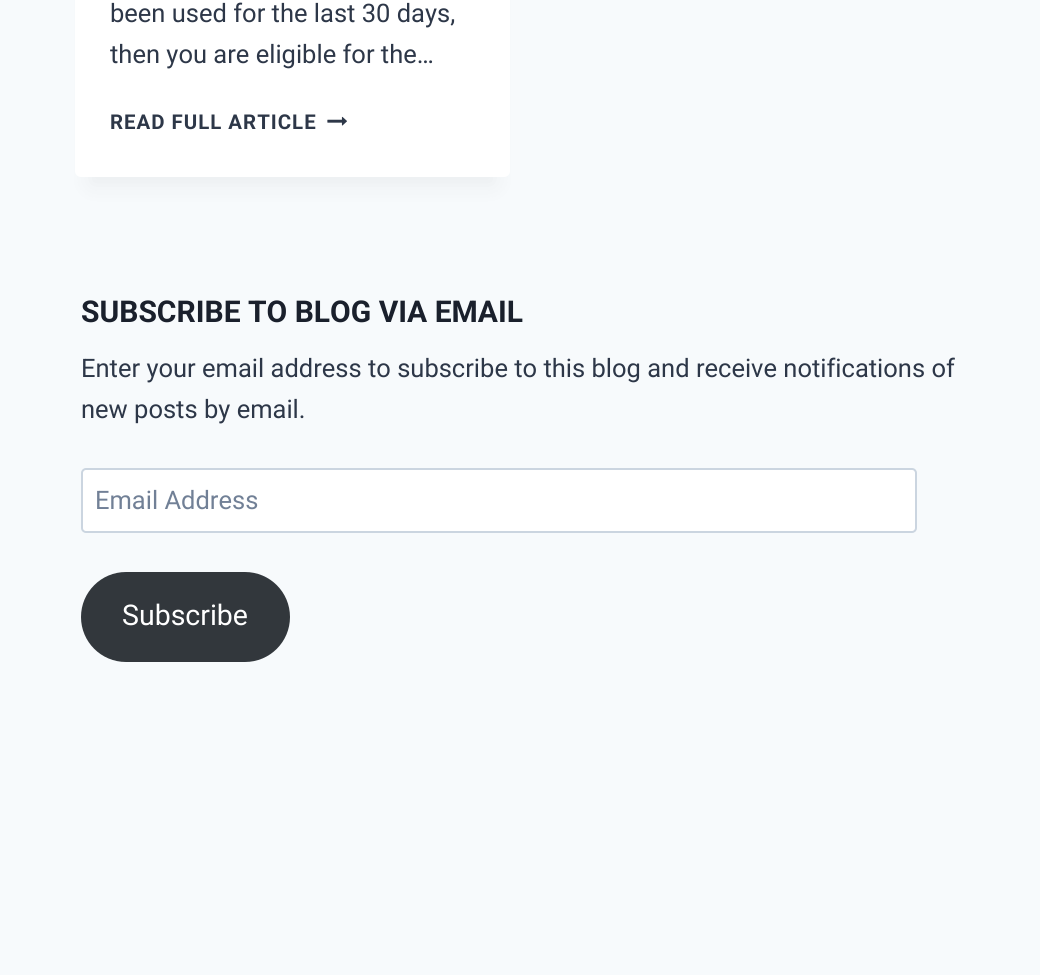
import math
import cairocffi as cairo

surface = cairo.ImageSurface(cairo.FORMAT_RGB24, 1040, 975)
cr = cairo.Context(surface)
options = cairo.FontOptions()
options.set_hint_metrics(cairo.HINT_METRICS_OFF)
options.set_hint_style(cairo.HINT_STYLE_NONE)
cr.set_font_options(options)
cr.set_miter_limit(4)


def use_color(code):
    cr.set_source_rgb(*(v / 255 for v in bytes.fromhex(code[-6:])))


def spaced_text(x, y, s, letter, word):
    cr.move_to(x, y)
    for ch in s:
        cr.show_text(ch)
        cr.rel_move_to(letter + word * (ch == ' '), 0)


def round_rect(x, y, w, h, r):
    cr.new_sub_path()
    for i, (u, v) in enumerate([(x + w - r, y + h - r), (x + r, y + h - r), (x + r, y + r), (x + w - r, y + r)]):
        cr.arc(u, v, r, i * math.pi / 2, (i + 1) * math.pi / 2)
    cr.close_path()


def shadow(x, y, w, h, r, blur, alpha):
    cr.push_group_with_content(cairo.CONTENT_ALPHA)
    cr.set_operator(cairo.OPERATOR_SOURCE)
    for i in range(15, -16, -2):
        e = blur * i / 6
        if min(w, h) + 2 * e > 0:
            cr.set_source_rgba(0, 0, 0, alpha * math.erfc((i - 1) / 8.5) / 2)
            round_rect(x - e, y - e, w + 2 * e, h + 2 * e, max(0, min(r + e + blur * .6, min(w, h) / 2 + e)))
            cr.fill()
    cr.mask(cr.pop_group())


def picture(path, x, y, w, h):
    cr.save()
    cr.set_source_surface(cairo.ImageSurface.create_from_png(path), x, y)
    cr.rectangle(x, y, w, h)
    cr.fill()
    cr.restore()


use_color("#f7fafc")
cr.paint()
use_color("#000000")
shadow(90, -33, 405, 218, 0, 11, 0.05)
use_color("#ffffff")
round_rect(75, -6, 435, 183, 6)
cr.fill()
cr.select_font_face("Roboto")
cr.set_font_size(25.5)
use_color("#2d3748")
cr.move_to(110, 22)
cr.show_text("been used for the last 30 days,")
cr.move_to(110, 63)
cr.show_text("then you are eligible for the…")
cr.select_font_face("Roboto", cairo.FONT_SLANT_NORMAL, cairo.FONT_WEIGHT_BOLD)
cr.set_font_size(20.4)
spaced_text(110, 129, "READ FULL ARTICLE", 1, 0)
picture("img1.png", 327, 116, 20, 10)
cr.set_font_size(30)
use_color("#1a202c")
cr.move_to(81, 322)
cr.show_text("SUBSCRIBE TO BLOG VIA EMAIL")
cr.select_font_face("Roboto")
cr.set_font_size(25.5)
use_color("#2d3748")
cr.move_to(81, 377)
cr.show_text("Enter your email address to subscribe to this blog and receive notifications of")
cr.move_to(81, 418)
cr.show_text("new posts by email.")
use_color("#ffffff")
round_rect(82, 469, 834, 63, 4)
cr.fill_preserve()
use_color("#cbd5e0")
cr.stroke()
use_color("#718096")
cr.move_to(95, 509)
cr.show_text("Email Address")
use_color("#32373c")
round_rect(81, 572, 209, 90, 45)
cr.fill()
cr.set_font_size(28.5)
use_color("#ffffff")
cr.move_to(122, 625)
cr.show_text("Subscribe")
surface.write_to_png("result.png")
